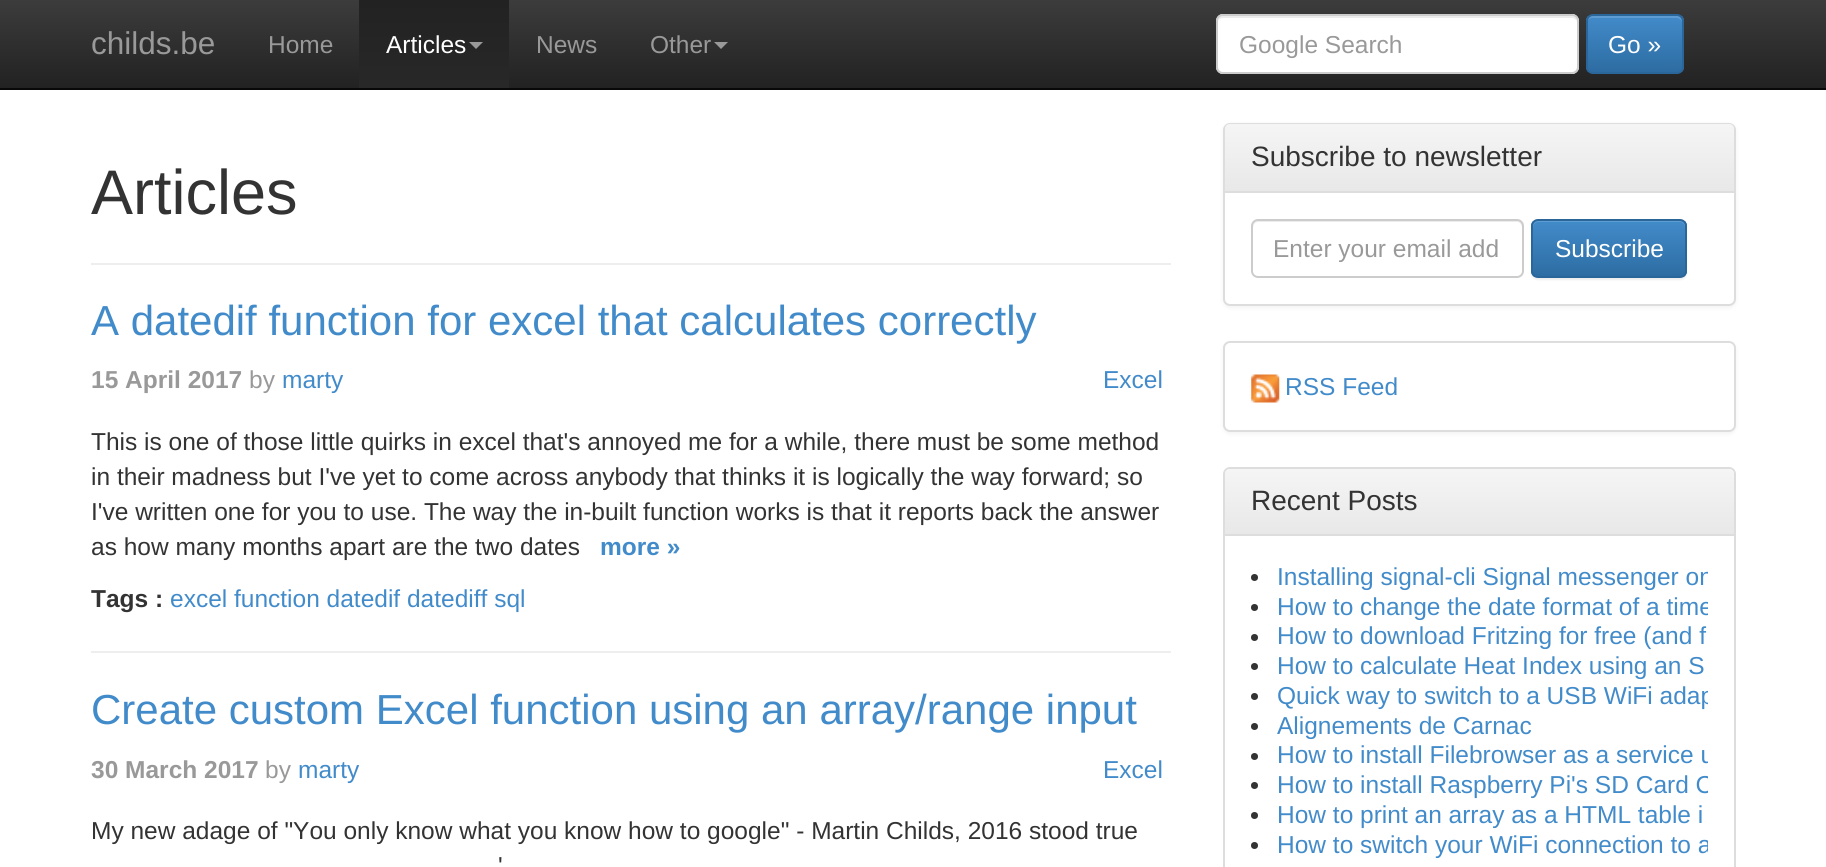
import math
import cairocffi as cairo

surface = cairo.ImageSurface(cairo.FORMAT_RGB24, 1826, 867)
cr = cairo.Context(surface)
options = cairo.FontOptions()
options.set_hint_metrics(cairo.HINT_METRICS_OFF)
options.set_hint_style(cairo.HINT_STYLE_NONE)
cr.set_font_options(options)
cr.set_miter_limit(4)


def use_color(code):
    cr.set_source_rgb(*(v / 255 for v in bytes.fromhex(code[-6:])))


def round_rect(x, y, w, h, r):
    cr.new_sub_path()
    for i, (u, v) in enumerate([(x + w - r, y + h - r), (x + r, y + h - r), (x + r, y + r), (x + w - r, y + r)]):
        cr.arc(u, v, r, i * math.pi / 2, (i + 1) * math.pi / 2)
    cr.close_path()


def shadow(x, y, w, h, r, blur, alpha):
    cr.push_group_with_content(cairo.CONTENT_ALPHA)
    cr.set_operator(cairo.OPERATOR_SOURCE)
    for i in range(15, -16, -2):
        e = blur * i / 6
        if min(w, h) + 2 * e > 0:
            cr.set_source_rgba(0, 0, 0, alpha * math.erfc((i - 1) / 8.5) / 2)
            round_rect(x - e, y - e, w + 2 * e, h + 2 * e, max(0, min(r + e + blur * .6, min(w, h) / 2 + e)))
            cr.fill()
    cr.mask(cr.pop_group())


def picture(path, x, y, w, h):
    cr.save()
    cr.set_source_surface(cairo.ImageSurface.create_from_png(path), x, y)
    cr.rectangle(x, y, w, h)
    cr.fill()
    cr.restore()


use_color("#ffffff")
cr.paint()
gradient = cairo.LinearGradient(914, 0, 914, 88)
gradient.add_color_stop_rgba(0, 0.235, 0.235, 0.235, 1)
gradient.add_color_stop_rgba(1, 0.133, 0.133, 0.133, 1)
cr.set_source(gradient)
cr.rectangle(0, 0, 1826, 88)
cr.fill()
use_color("#080808")
cr.rectangle(0, 88, 1826, 2)
cr.fill()
cr.select_font_face("Liberation Sans")
cr.set_font_size(31.5)
use_color("#999999")
cr.move_to(91, 54)
cr.show_text("childs.be")
cr.set_font_size(24.5)
cr.move_to(268, 53)
cr.show_text("Home")
gradient = cairo.LinearGradient(434, 0, 434, 88)
gradient.add_color_stop_rgba(0, 0.133, 0.133, 0.133, 1)
gradient.add_color_stop_rgba(1, 0.157, 0.157, 0.157, 1)
cr.set_source(gradient)
cr.rectangle(359, 0, 150, 88)
cr.fill()
use_color("#ffffff")
cr.move_to(386, 53)
cr.show_text("Articles")
use_color("#999999")
cr.new_path()
cr.move_to(469, 42)
cr.line_to(483, 42)
cr.line_to(476, 49)
cr.close_path()
cr.fill()
cr.move_to(536, 53)
cr.show_text("News")
cr.move_to(650, 53)
cr.show_text("Other")
cr.new_path()
cr.move_to(714, 42)
cr.line_to(728, 42)
cr.line_to(721, 49)
cr.close_path()
cr.fill()
use_color("#ffffff")
round_rect(1216, 14, 363, 60, 7)
cr.fill()
use_color("#ececec")
cr.new_path()
cr.move_to(1223, 18)
cr.line_to(1572, 18)
cr.curve_to(1574, 18, 1577, 20, 1577, 23)
cr.curve_to(1577, 20, 1576, 16, 1572, 16)
cr.line_to(1223, 16)
cr.curve_to(1219, 16, 1218, 20, 1218, 23)
cr.curve_to(1218, 20, 1220, 18, 1223, 18)
cr.close_path()
cr.fill()
round_rect(1217, 15, 361, 58, 6)
use_color("#cccccc")
cr.stroke()
use_color("#999999")
cr.move_to(1239, 53)
cr.show_text("Google Search")
cr.save()
round_rect(1586, 14, 98, 60, 7)
cr.clip()
gradient = cairo.LinearGradient(1635, 16, 1635, 72)
gradient.add_color_stop_rgba(0, 0.259, 0.545, 0.792, 1)
gradient.add_color_stop_rgba(1, 0.176, 0.424, 0.635, 1)
cr.set_source(gradient)
cr.rectangle(1586, 16, 98, 56)
cr.fill()
cr.restore()
cr.set_source_rgba(1, 1, 1, 0.15)
cr.new_path()
cr.move_to(1592, 18)
cr.line_to(1676, 18)
cr.curve_to(1679, 18, 1682, 20, 1682, 23)
cr.curve_to(1682, 12, 1671, 16, 1663, 16)
cr.line_to(1606, 16)
cr.curve_to(1598, 16, 1587, 12, 1587, 23)
cr.curve_to(1587, 20, 1590, 18, 1592, 18)
cr.close_path()
cr.fill()
round_rect(1587, 15, 96, 58, 6)
use_color("#2b669a")
cr.stroke()
use_color("#ffffff")
cr.move_to(1608, 53)
cr.show_text("Go »")
cr.set_font_size(63)
use_color("#333333")
cr.move_to(91, 214)
cr.show_text("Articles")
use_color("#eeeeee")
cr.rectangle(91, 263, 1080, 2)
cr.fill()
cr.set_font_size(42)
use_color("#428bca")
cr.move_to(91, 335)
cr.show_text("A datedif function for excel that calculates correctly")
cr.select_font_face("Liberation Sans", cairo.FONT_SLANT_NORMAL, cairo.FONT_WEIGHT_BOLD)
cr.set_font_size(24.5)
use_color("#999999")
cr.move_to(91, 388)
cr.show_text("15 April 2017")
cr.select_font_face("Liberation Sans")
cr.move_to(249, 388)
cr.show_text("by")
use_color("#428bca")
cr.move_to(282, 388)
cr.show_text("marty")
cr.move_to(1103, 388)
cr.show_text("Excel")
use_color("#333333")
cr.move_to(91, 450)
cr.show_text("This is one of those little quirks in excel that's annoyed me for a while, there must be some method")
cr.move_to(91, 485)
cr.show_text("in their madness but I've yet to come across anybody that thinks it is logically the way forward; so")
cr.move_to(91, 520)
cr.show_text("I've written one for you to use. The way the in-built function works is that it reports back the answer")
cr.move_to(91, 555)
cr.show_text("as how many months apart are the two dates")
cr.select_font_face("Liberation Sans", cairo.FONT_SLANT_NORMAL, cairo.FONT_WEIGHT_BOLD)
use_color("#428bca")
cr.move_to(600, 555)
cr.show_text("more »")
use_color("#333333")
cr.move_to(91, 607)
cr.show_text("Tags :")
cr.select_font_face("Liberation Sans")
use_color("#428bca")
cr.move_to(170, 607)
cr.show_text("excel function datedif datediff sql")
use_color("#eeeeee")
cr.rectangle(91, 651, 1080, 2)
cr.fill()
cr.set_font_size(42)
use_color("#428bca")
cr.move_to(91, 724)
cr.show_text("Create custom Excel function using an array/range input")
cr.select_font_face("Liberation Sans", cairo.FONT_SLANT_NORMAL, cairo.FONT_WEIGHT_BOLD)
cr.set_font_size(24.5)
use_color("#999999")
cr.move_to(91, 778)
cr.show_text("30 March 2017")
cr.select_font_face("Liberation Sans")
cr.move_to(265, 778)
cr.show_text("by")
use_color("#428bca")
cr.move_to(298, 778)
cr.show_text("marty")
cr.move_to(1103, 778)
cr.show_text("Excel")
use_color("#333333")
cr.move_to(91, 839)
cr.show_text("My new adage of \"You only know what you know how to google\" - Martin Childs, 2016 stood true")
cr.move_to(498, 874)
cr.show_text("'")
use_color("#000000")
shadow(1223, 124, 513, 184, 7, 2, 0.05)
use_color("#ffffff")
round_rect(1224, 124, 511, 181, 6)
cr.fill_preserve()
use_color("#dddddd")
cr.stroke()
gradient = cairo.LinearGradient(1480, 124, 1480, 191)
gradient.add_color_stop_rgba(0, 0.961, 0.961, 0.961, 1)
gradient.add_color_stop_rgba(1, 0.91, 0.91, 0.91, 1)
cr.set_source(gradient)
cr.new_path()
cr.move_to(1230, 124)
cr.line_to(1729, 124)
cr.curve_to(1732, 124, 1734, 126, 1734, 129)
cr.line_to(1734, 191)
cr.line_to(1225, 191)
cr.line_to(1225, 129)
cr.curve_to(1225, 126, 1227, 124, 1230, 124)
cr.close_path()
cr.fill()
use_color("#dddddd")
cr.rectangle(1225, 191, 509, 2)
cr.fill()
cr.set_font_size(28)
use_color("#333333")
cr.move_to(1251, 166)
cr.show_text("Subscribe to newsletter")
use_color("#ececec")
cr.new_path()
cr.move_to(1258, 222)
cr.line_to(1517, 222)
cr.curve_to(1520, 222, 1522, 225, 1522, 228)
cr.line_to(1522, 273)
cr.line_to(1521, 276)
cr.curve_to(1522, 275, 1523, 273, 1523, 272)
cr.line_to(1523, 226)
cr.curve_to(1523, 223, 1521, 221, 1518, 221)
cr.line_to(1258, 221)
cr.curve_to(1255, 221, 1253, 223, 1253, 226)
cr.line_to(1253, 228)
cr.curve_to(1253, 225, 1255, 222, 1258, 222)
cr.close_path()
cr.fill()
round_rect(1252, 220, 271, 57, 6)
use_color("#cccccc")
cr.stroke()
cr.set_font_size(24.5)
use_color("#999999")
cr.move_to(1273, 257)
cr.show_text("Enter your email add")
use_color("#000000")
shadow(1531, 221, 156, 59, 7, 1, 0.07)
cr.save()
round_rect(1531, 219, 156, 59, 7)
cr.clip()
gradient = cairo.LinearGradient(1609, 221, 1609, 277)
gradient.add_color_stop_rgba(0, 0.259, 0.545, 0.792, 1)
gradient.add_color_stop_rgba(1, 0.176, 0.424, 0.635, 1)
cr.set_source(gradient)
cr.rectangle(1531, 221, 156, 56)
cr.fill()
cr.restore()
use_color("#5e9cd2")
cr.new_path()
cr.move_to(1538, 222)
cr.line_to(1680, 222)
cr.curve_to(1683, 222, 1685, 225, 1685, 228)
cr.line_to(1685, 226)
cr.curve_to(1685, 223, 1683, 221, 1680, 221)
cr.line_to(1538, 221)
cr.curve_to(1535, 221, 1533, 223, 1533, 226)
cr.line_to(1533, 228)
cr.curve_to(1533, 225, 1535, 222, 1538, 222)
cr.close_path()
cr.fill()
round_rect(1532, 220, 154, 57, 6)
use_color("#2b669a")
cr.stroke()
use_color("#ffffff")
cr.move_to(1555, 257)
cr.show_text("Subscribe")
use_color("#000000")
shadow(1223, 343, 513, 91, 7, 2, 0.05)
use_color("#ffffff")
round_rect(1224, 342, 511, 89, 6)
cr.fill_preserve()
use_color("#dddddd")
cr.stroke()
picture("img1.png", 1251, 374, 29, 29)
use_color("#428bca")
cr.move_to(1285, 395)
cr.show_text("RSS Feed")
round_rect(1224, 468, 511, 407, 6)
use_color("#dddddd")
cr.stroke()
gradient = cairo.LinearGradient(1480, 469, 1480, 534)
gradient.add_color_stop_rgba(0, 0.961, 0.961, 0.961, 1)
gradient.add_color_stop_rgba(1, 0.91, 0.91, 0.91, 1)
cr.set_source(gradient)
cr.new_path()
cr.move_to(1230, 469)
cr.line_to(1729, 469)
cr.curve_to(1732, 469, 1734, 471, 1734, 474)
cr.line_to(1734, 534)
cr.line_to(1225, 534)
cr.line_to(1225, 474)
cr.curve_to(1225, 471, 1227, 469, 1230, 469)
cr.close_path()
cr.fill()
use_color("#dddddd")
cr.rectangle(1225, 534, 509, 2)
cr.fill()
cr.set_font_size(28)
use_color("#333333")
cr.move_to(1251, 510)
cr.show_text("Recent Posts")
cr.new_path()
cr.arc(1254.5, 577.5, 3.5, 0, 2 * math.pi)
cr.fill()
cr.save()
cr.rectangle(1251, 562, 457, 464)
cr.clip()
cr.set_font_size(24.5)
use_color("#428bca")
cr.move_to(1277, 585)
cr.show_text("Installing signal-cli Signal messenger on")
cr.restore()
cr.new_path()
cr.arc(1254.5, 607.5, 3.5, 0, 2 * math.pi)
cr.fill()
cr.save()
cr.rectangle(1251, 562, 457, 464)
cr.clip()
cr.set_font_size(24.5)
use_color("#428bca")
cr.move_to(1277, 615)
cr.show_text("How to change the date format of a time")
cr.restore()
cr.new_path()
cr.arc(1254.5, 637.5, 3.5, 0, 2 * math.pi)
cr.fill()
cr.set_font_size(24.5)
use_color("#428bca")
cr.move_to(1277, 644)
cr.show_text("How to download Fritzing for free (and f")
use_color("#333333")
cr.new_path()
cr.arc(1254.5, 666.5, 3.5, 0, 2 * math.pi)
cr.fill()
use_color("#428bca")
cr.move_to(1277, 674)
cr.show_text("How to calculate Heat Index using an S")
use_color("#333333")
cr.new_path()
cr.arc(1254.5, 696.5, 3.5, 0, 2 * math.pi)
cr.fill()
cr.save()
cr.rectangle(1251, 562, 457, 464)
cr.clip()
use_color("#428bca")
cr.move_to(1277, 704)
cr.show_text("Quick way to switch to a USB WiFi adap")
cr.restore()
cr.new_path()
cr.arc(1254.5, 726.5, 3.5, 0, 2 * math.pi)
cr.fill()
use_color("#428bca")
cr.move_to(1277, 734)
cr.show_text("Alignements de Carnac")
use_color("#333333")
cr.new_path()
cr.arc(1254.5, 756.5, 3.5, 0, 2 * math.pi)
cr.fill()
cr.save()
cr.rectangle(1251, 562, 457, 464)
cr.clip()
use_color("#428bca")
cr.move_to(1277, 763)
cr.show_text("How to install Filebrowser as a service u")
cr.restore()
cr.new_path()
cr.arc(1254.5, 785.5, 3.5, 0, 2 * math.pi)
cr.fill()
cr.save()
cr.rectangle(1251, 562, 457, 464)
cr.clip()
use_color("#428bca")
cr.move_to(1277, 793)
cr.show_text("How to install Raspberry Pi's SD Card C")
cr.restore()
cr.new_path()
cr.arc(1254.5, 815.5, 3.5, 0, 2 * math.pi)
cr.fill()
use_color("#428bca")
cr.move_to(1277, 823)
cr.show_text("How to print an array as a HTML table i")
use_color("#333333")
cr.new_path()
cr.arc(1254.5, 845.5, 3.5, 0, 2 * math.pi)
cr.fill()
cr.save()
cr.rectangle(1251, 562, 457, 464)
cr.clip()
use_color("#428bca")
cr.move_to(1277, 853)
cr.show_text("How to switch your WiFi connection to a")
cr.restore()
surface.write_to_png("result.png")
